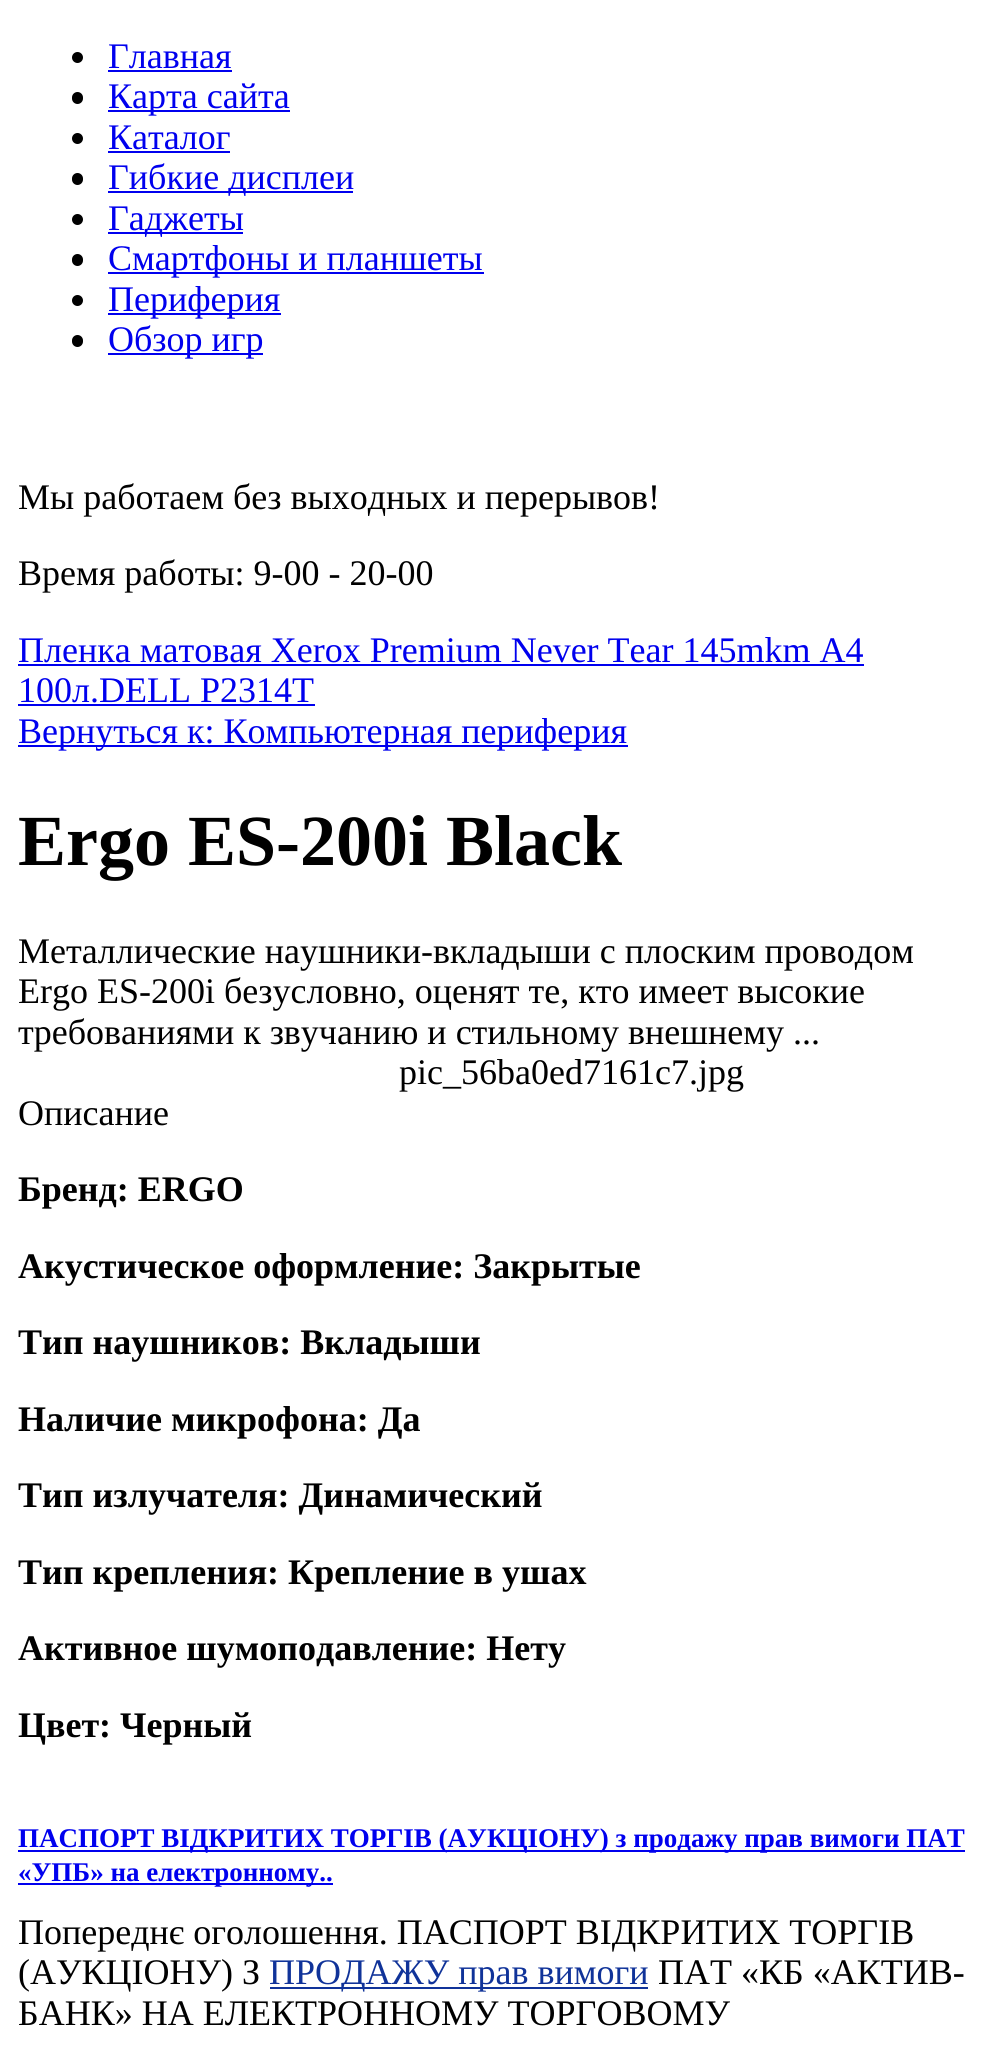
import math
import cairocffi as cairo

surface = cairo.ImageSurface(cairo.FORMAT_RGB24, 982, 2055)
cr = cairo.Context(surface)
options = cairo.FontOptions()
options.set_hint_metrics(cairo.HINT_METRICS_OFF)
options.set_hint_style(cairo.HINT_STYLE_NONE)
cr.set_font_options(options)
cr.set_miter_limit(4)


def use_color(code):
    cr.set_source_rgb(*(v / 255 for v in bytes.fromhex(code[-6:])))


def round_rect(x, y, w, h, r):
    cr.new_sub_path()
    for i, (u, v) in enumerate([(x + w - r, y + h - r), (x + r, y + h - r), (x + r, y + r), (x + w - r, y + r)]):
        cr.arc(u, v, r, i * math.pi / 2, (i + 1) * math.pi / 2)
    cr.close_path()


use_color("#ffffff")
cr.paint()
use_color("#000000")
cr.arc(77.5, 57.5, 5.5, 0, 2 * math.pi)
cr.fill()
cr.select_font_face("Liberation Serif")
cr.set_font_size(36)
use_color("#0000ee")
cr.move_to(108, 68)
cr.show_text("Главная")
cr.rectangle(108, 70, 124, 2)
cr.fill()
use_color("#000000")
round_rect(72, 92, 11, 12, 5.5)
cr.fill()
use_color("#0000ee")
cr.rectangle(108, 110, 182, 2)
cr.fill()
cr.move_to(108, 108)
cr.show_text("Карта сайта")
use_color("#000000")
cr.new_path()
cr.arc(77.5, 138.5, 5.5, 0, 2 * math.pi)
cr.fill()
use_color("#0000ee")
cr.move_to(108, 149)
cr.show_text("Каталог")
cr.rectangle(108, 151, 122, 2)
cr.fill()
use_color("#000000")
round_rect(72, 173, 11, 12, 5.5)
cr.fill()
use_color("#0000ee")
cr.rectangle(108, 191, 245, 2)
cr.fill()
cr.move_to(108, 189)
cr.show_text("Гибкие дисплеи")
use_color("#000000")
cr.new_path()
cr.arc(77.5, 219.5, 5.5, 0, 2 * math.pi)
cr.fill()
use_color("#0000ee")
cr.rectangle(108, 232, 135, 2)
cr.fill()
cr.move_to(108, 230)
cr.show_text("Гаджеты")
use_color("#000000")
round_rect(72, 254, 11, 12, 5.5)
cr.fill()
use_color("#0000ee")
cr.rectangle(108, 272, 376, 2)
cr.fill()
cr.move_to(108, 270)
cr.show_text("Смартфоны и планшеты")
use_color("#000000")
cr.new_path()
cr.arc(77.5, 300.5, 5.5, 0, 2 * math.pi)
cr.fill()
use_color("#0000ee")
cr.rectangle(108, 313, 173, 2)
cr.fill()
cr.move_to(108, 311)
cr.show_text("Периферия")
use_color("#000000")
round_rect(72, 335, 11, 12, 5.5)
cr.fill()
use_color("#0000ee")
cr.rectangle(108, 353, 155, 2)
cr.fill()
cr.move_to(108, 351)
cr.show_text("Обзор игр")
use_color("#000000")
cr.move_to(18, 509)
cr.show_text("Мы работаем без выходных и перерывов!")
cr.move_to(18, 585)
cr.show_text("Время работы: 9-00 - 20-00")
use_color("#0000ee")
cr.move_to(18, 662)
cr.show_text("Пленка матовая Xerox Premium Never Tear 145mkm A4")
cr.rectangle(18, 664, 846, 2)
cr.fill()
cr.move_to(18, 702)
cr.show_text("100л.DELL P2314T")
cr.rectangle(18, 704, 297, 2)
cr.fill()
cr.rectangle(18, 745, 610, 2)
cr.fill()
cr.move_to(18, 743)
cr.show_text("Вернуться к: Компьютерная периферия")
cr.select_font_face("Liberation Serif", cairo.FONT_SLANT_NORMAL, cairo.FONT_WEIGHT_BOLD)
cr.set_font_size(72)
use_color("#000000")
cr.move_to(18, 865)
cr.show_text("Ergo ES-200i Black")
cr.select_font_face("Liberation Serif")
cr.set_font_size(36)
cr.move_to(18, 963)
cr.show_text("Металлические наушники-вкладыши с плоским проводом")
cr.move_to(18, 1003)
cr.show_text("Ergo ES-200i безусловно, оценят те, кто имеет высокие")
cr.move_to(18, 1044)
cr.show_text("требованиями к звучанию и стильному внешнему ...")
cr.move_to(399, 1084)
cr.show_text("pic_56ba0ed7161c7.jpg")
cr.move_to(18, 1125)
cr.show_text("Описание")
cr.select_font_face("Liberation Serif", cairo.FONT_SLANT_NORMAL, cairo.FONT_WEIGHT_BOLD)
cr.move_to(18, 1201)
cr.show_text("Бренд: ERGO")
cr.move_to(18, 1278)
cr.show_text("Акустическое оформление: Закрытые")
cr.move_to(18, 1354)
cr.show_text("Тип наушников: Вкладыши")
cr.move_to(18, 1431)
cr.show_text("Наличие микрофона: Да")
cr.move_to(18, 1507)
cr.show_text("Тип излучателя: Динамический")
cr.move_to(18, 1584)
cr.show_text("Тип крепления: Крепление в ушах")
cr.move_to(18, 1660)
cr.show_text("Активное шумоподавление: Нету")
cr.move_to(18, 1737)
cr.show_text("Цвет: Черный")
use_color("#0000ee")
cr.rectangle(18, 1850, 947, 2)
cr.fill()
cr.set_font_size(27)
cr.move_to(18, 1847)
cr.show_text("ПАСПОРТ ВІДКРИТИХ ТОРГІВ (АУКЦІОНУ) з продажу прав вимоги ПАТ")
cr.rectangle(18, 1883, 315, 2)
cr.fill()
cr.move_to(18, 1881)
cr.show_text("«УПБ» на електронному..")
cr.select_font_face("Liberation Serif")
cr.set_font_size(36)
use_color("#000000")
cr.move_to(18, 1944)
cr.show_text("Попереднє оголошення. ПАСПОРТ ВІДКРИТИХ ТОРГІВ")
cr.move_to(18, 1984)
cr.show_text("(АУКЦІОНУ) З")
use_color("#103399")
cr.rectangle(270, 1987, 378, 2)
cr.fill()
cr.move_to(269, 1984)
cr.show_text("ПРОДАЖУ прав вимоги")
use_color("#000000")
cr.move_to(658, 1984)
cr.show_text("ПАТ «КБ «АКТИВ-")
cr.move_to(18, 2025)
cr.show_text("БАНК» НА ЕЛЕКТРОННОМУ ТОРГОВОМУ")
surface.write_to_png("result.png")
